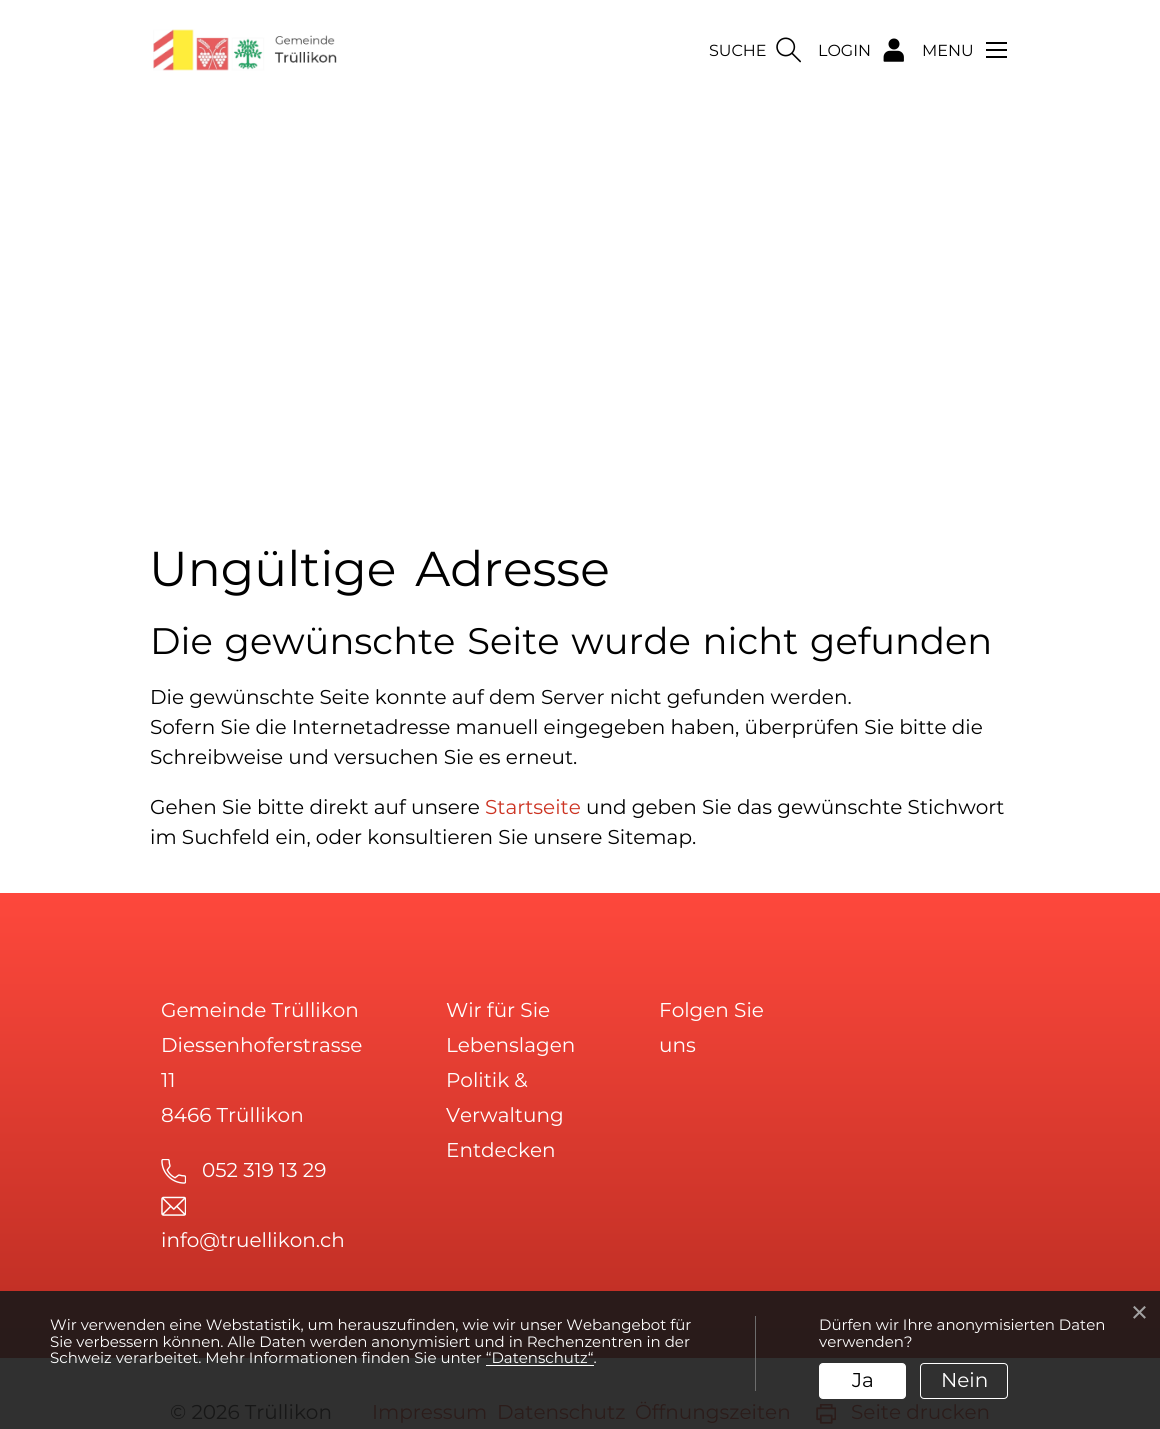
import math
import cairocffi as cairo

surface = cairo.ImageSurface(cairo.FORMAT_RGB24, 1160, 1429)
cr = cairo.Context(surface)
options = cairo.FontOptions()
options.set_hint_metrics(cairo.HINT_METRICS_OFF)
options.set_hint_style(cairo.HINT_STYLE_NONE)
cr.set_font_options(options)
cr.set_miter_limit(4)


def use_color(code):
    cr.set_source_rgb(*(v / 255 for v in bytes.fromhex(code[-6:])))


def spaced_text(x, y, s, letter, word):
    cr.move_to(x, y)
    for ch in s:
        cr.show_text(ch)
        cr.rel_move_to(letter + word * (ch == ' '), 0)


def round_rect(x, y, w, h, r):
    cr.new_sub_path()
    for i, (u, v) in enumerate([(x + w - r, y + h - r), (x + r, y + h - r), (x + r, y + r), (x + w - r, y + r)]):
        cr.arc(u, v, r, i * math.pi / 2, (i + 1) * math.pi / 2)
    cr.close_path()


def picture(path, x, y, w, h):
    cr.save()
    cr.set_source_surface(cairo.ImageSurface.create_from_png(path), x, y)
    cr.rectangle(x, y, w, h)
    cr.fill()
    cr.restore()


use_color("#ffffff")
cr.paint()
use_color("#303030")
cr.rectangle(0, 1358, 1160, 71)
cr.fill()
picture("img1.png", 153, 29, 184, 42)
cr.select_font_face("Montserrat")
cr.set_font_size(16)
use_color("#000000")
cr.move_to(709, 56)
cr.show_text("SUCHE")
picture("img2.png", 776, 37, 25, 26)
cr.move_to(818, 56)
cr.show_text("LOGIN")
picture("img3.png", 883, 38, 21, 24)
cr.move_to(922, 56)
cr.show_text("MENU")
cr.rectangle(986, 42, 21, 2)
cr.fill()
cr.rectangle(986, 49, 21, 2)
cr.fill()
cr.rectangle(986, 56, 21, 2)
cr.fill()
cr.set_font_size(48.9)
spaced_text(149, 586, "Ungültige Adresse", 0, 6)
cr.set_font_size(36.9)
spaced_text(150, 654, "Die gewünschte Seite wurde nicht gefunden", 0, 2.25)
cr.set_font_size(20)
cr.move_to(150, 704)
cr.show_text("Die gewünschte Seite konnte auf dem Server nicht gefunden werden.")
cr.move_to(150, 734)
cr.show_text("Sofern Sie die Internetadresse manuell eingegeben haben, überprüfen Sie bitte die")
cr.move_to(150, 764)
cr.show_text("Schreibweise und versuchen Sie es erneut.")
cr.move_to(150, 814)
cr.show_text("Gehen Sie bitte direkt auf unsere")
use_color("#cc3322")
cr.move_to(485, 814)
cr.show_text("Startseite")
use_color("#000000")
cr.move_to(586, 814)
cr.show_text("und geben Sie das gewünschte Stichwort")
cr.move_to(150, 844)
cr.show_text("im Suchfeld ein, oder konsultieren Sie unsere Sitemap.")
gradient = cairo.LinearGradient(580, 1358, 580, 893)
gradient.add_color_stop_rgba(0, 0.725, 0.173, 0.133, 1)
gradient.add_color_stop_rgba(1, 0.996, 0.282, 0.235, 1)
cr.set_source(gradient)
cr.rectangle(0, 893, 1160, 398)
cr.fill()
gradient = cairo.LinearGradient(580, 1358, 580, 893)
gradient.add_color_stop_rgba(0, 0.161, 0.106, 0.102, 1)
gradient.add_color_stop_rgba(1, 0.188, 0.118, 0.114, 1)
cr.set_source(gradient)
cr.rectangle(0, 1291, 1160, 67)
cr.fill()
use_color("#ffffff")
cr.move_to(161, 1017)
cr.show_text("Gemeinde Trüllikon")
cr.move_to(161, 1052)
cr.show_text("Diessenhoferstrasse")
cr.move_to(161, 1087)
cr.show_text("11")
cr.move_to(161, 1122)
cr.show_text("8466 Trüllikon")
picture("img4.png", 161, 1159, 25, 25)
cr.move_to(202, 1177)
cr.show_text("052 319 13 29")
picture("img5.png", 161, 1196, 25, 20)
cr.move_to(161, 1247)
cr.show_text("info@truellikon.ch")
cr.move_to(446, 1017)
cr.show_text("Wir für Sie")
cr.move_to(446, 1052)
cr.show_text("Lebenslagen")
cr.move_to(446, 1087)
cr.show_text("Politik &")
cr.move_to(446, 1122)
cr.show_text("Verwaltung")
cr.move_to(446, 1157)
cr.show_text("Entdecken")
cr.move_to(659, 1017)
cr.show_text("Folgen Sie")
cr.move_to(659, 1052)
cr.show_text("uns")
use_color("#171717")
cr.move_to(170, 1419)
cr.show_text("© 2026 Trüllikon")
use_color("#2b1c1a")
cr.move_to(372, 1419)
cr.show_text("Impressum")
cr.move_to(497, 1419)
cr.show_text("Datenschutz")
cr.move_to(635, 1419)
cr.show_text("Öffnungszeiten")
picture("img6.png", 816, 1404, 20, 20)
cr.move_to(851, 1419)
cr.show_text("Seite drucken")
cr.select_font_face("Liberation Sans")
cr.set_font_size(29)
use_color("#a2a2a2")
cr.move_to(1131, 1322)
cr.show_text("×")
use_color("#6d6d6d")
cr.rectangle(755, 1316, 1, 75)
cr.fill()
cr.select_font_face("Montserrat")
cr.set_font_size(15)
use_color("#ffffff")
cr.move_to(50, 1330)
cr.show_text("Wir verwenden eine Webstatistik, um herauszufinden, wie wir unser Webangebot für")
cr.move_to(50, 1347)
cr.show_text("Sie verbessern können. Alle Daten werden anonymisiert und in Rechenzentren in der")
cr.move_to(50, 1363)
cr.show_text("Schweiz verarbeitet. Mehr Informationen finden Sie unter “Datenschutz“.")
cr.rectangle(486, 1365, 108, 1)
cr.fill()
cr.move_to(819, 1330)
cr.show_text("Dürfen wir Ihre anonymisierten Daten")
cr.move_to(819, 1347)
cr.show_text("verwenden?")
round_rect(819.5, 1363.5, 86, 35, 3.5)
cr.fill_preserve()
cr.set_line_width(1)
cr.stroke()
cr.set_font_size(20)
use_color("#000000")
cr.move_to(852, 1387)
cr.show_text("Ja")
round_rect(920.5, 1363.5, 87, 35, 3.5)
use_color("#ffffff")
cr.stroke()
cr.move_to(941, 1387)
cr.show_text("Nein")
surface.write_to_png("result.png")
